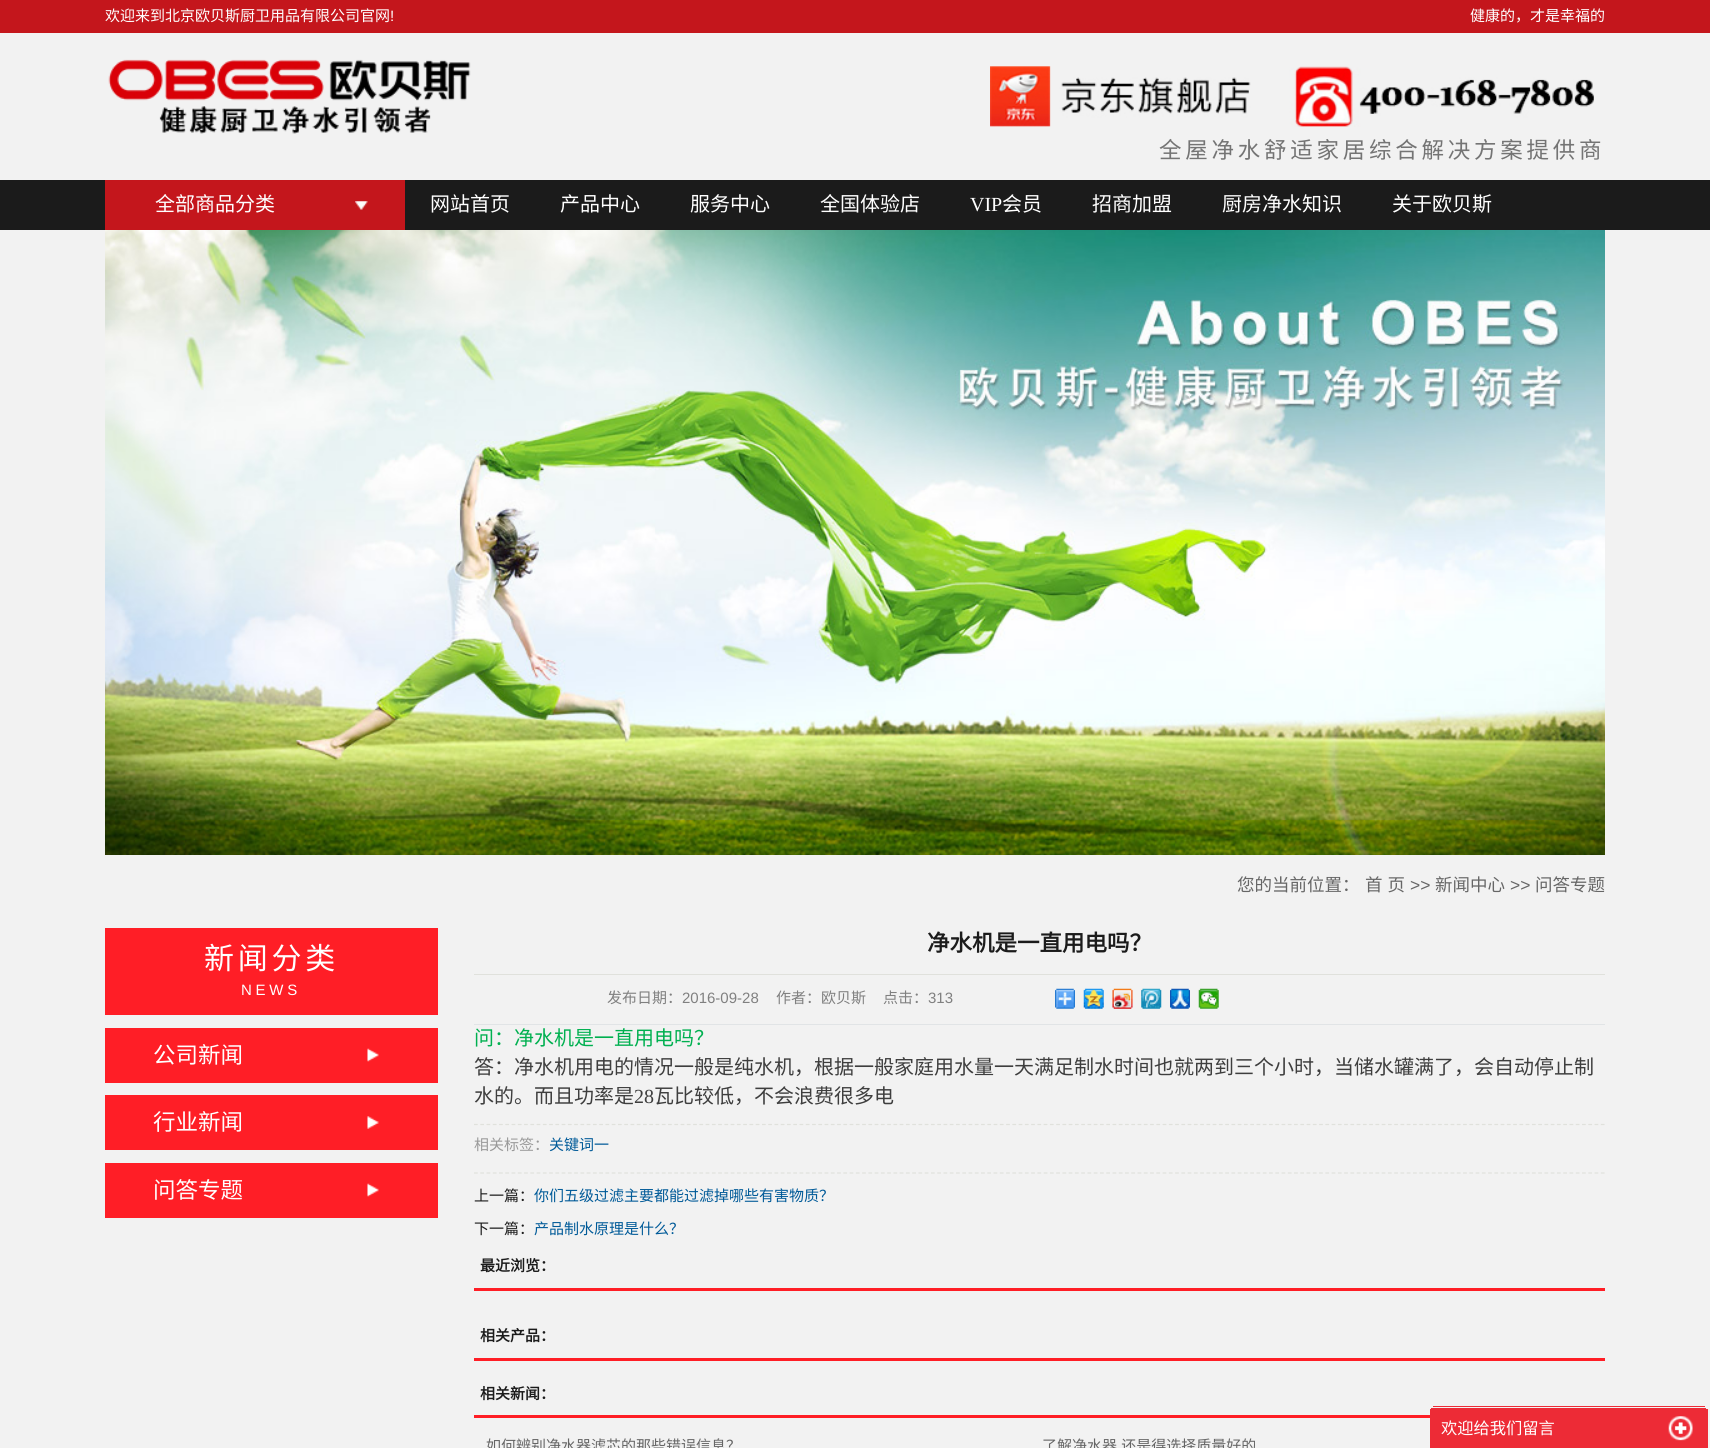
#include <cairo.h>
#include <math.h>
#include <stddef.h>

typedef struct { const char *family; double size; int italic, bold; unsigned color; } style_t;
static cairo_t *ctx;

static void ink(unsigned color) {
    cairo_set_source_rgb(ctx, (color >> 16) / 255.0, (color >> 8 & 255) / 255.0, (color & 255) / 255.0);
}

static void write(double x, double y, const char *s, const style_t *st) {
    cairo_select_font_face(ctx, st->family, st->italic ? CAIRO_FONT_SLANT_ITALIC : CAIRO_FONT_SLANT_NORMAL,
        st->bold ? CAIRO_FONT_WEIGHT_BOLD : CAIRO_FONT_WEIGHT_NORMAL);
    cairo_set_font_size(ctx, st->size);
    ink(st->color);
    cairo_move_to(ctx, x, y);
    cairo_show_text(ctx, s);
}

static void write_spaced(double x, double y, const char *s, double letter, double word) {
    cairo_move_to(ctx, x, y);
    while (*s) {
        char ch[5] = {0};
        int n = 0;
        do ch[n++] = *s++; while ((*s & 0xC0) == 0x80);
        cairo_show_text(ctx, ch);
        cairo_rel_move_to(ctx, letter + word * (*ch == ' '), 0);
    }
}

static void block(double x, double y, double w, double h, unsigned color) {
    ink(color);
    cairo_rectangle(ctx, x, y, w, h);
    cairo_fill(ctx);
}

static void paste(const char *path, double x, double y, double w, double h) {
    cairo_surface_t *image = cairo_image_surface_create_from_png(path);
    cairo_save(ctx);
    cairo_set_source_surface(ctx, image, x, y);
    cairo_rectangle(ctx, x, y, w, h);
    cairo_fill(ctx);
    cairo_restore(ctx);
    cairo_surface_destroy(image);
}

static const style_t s1 = {"Noto Sans CJK SC", 15, 0, 0, 0xffffff};
static const style_t s2 = {"Liberation Sans", 15, 0, 0, 0xffffff};
static const style_t s3 = {"Noto Sans CJK SC", 20, 0, 0, 0xffffff};
static const style_t s4 = {"Liberation Serif", 20, 0, 0, 0xffffff};
static const style_t s5 = {"Noto Sans CJK SC", 17.5, 0, 0, 0x666666};
static const style_t s6 = {"Liberation Sans", 17.5, 0, 0, 0x666666};
static const style_t s7 = {"Noto Sans CJK SC", 22.5, 0, 0, 0xffffff};
static const style_t s8 = {"Noto Sans CJK SC", 22.5, 0, 1, 0x1b1b1b};
static const style_t s9 = {"Noto Sans CJK SC", 15, 0, 0, 0x808080};
static const style_t s10 = {"Liberation Sans", 15, 0, 0, 0x808080};
static const style_t s11 = {"Noto Sans CJK SC", 20, 0, 0, 0x00b050};
static const style_t s12 = {"Noto Sans CJK SC", 20, 0, 0, 0x3e3e3e};
static const style_t s13 = {"Liberation Serif", 20, 0, 0, 0x3e3e3e};
static const style_t s14 = {"Noto Sans CJK SC", 15, 0, 0, 0x999999};
static const style_t s15 = {"Noto Sans CJK SC", 15, 0, 0, 0x005a98};
static const style_t s16 = {"Noto Sans CJK SC", 15, 0, 0, 0x1b1b1b};
static const style_t s17 = {"Noto Sans CJK SC", 15, 0, 1, 0x1b1b1b};
static const style_t s18 = {"Noto Sans CJK SC", 15, 0, 0, 0x666666};
static const style_t s19 = {"Noto Sans CJK SC", 16.25, 0, 0, 0xffffff};

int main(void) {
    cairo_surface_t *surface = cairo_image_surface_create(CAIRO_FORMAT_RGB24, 1710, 1448);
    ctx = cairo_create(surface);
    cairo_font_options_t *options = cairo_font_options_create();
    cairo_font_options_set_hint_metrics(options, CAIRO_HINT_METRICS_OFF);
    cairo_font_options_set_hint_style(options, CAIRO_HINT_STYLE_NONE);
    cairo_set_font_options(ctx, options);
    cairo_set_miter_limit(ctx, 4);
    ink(0xf2f2f2);
    cairo_paint(ctx);
    block(0, 0, 1710, 33, 0xc4161c);
    write(105, 21, "欢迎来到北京欧贝斯厨卫用品有限公司官网", &s1);
    write(390, 21, "!", &s2);
    write(1470, 21, "健康的，才是幸福的", &s1);
    paste("pic1.png", 108, 59, 363, 75);
    paste("pic2.png", 990, 66, 604, 61);
    cairo_set_font_size(ctx, 22.5);
    ink(0x747474);
    write_spaced(1159, 158, "全屋净水舒适家居综合解决方案提供商", 3.75, 0);
    block(0, 180, 1710, 50, 0x1b1b1b);
    block(105, 180, 300, 50, 0xc4161c);
    paste("pic3.png", 355, 201, 13, 9);
    write(155, 211, "全部商品分类", &s3);
    write(430, 211, "网站首页", &s3);
    write(560, 211, "产品中心", &s3);
    write(690, 211, "服务中心", &s3);
    write(820, 211, "全国体验店", &s3);
    write(970, 211, "VIP", &s4);
    write(1002, 211, "会员", &s3);
    write(1092, 211, "招商加盟", &s3);
    write(1222, 211, "厨房净水知识", &s3);
    write(1392, 211, "关于欧贝斯", &s3);
    paste("pic4.png", 105, 230, 1500, 625);
    write(1237, 891, "您的当前位置：", &s5);
    write_spaced(1365, 891, "首 页", 0, 1);
    write(1410, 891, ">>", &s6);
    write(1435, 891, "新闻中心", &s5);
    write(1510, 891, ">>", &s6);
    write(1535, 891, "问答专题", &s5);
    block(105, 928, 333, 87, 0xff1e26);
    cairo_set_font_size(ctx, 30);
    ink(0xffffff);
    write_spaced(204, 969, "新闻分类", 3.75, 0);
    cairo_select_font_face(ctx, "Liberation Sans", CAIRO_FONT_SLANT_NORMAL, CAIRO_FONT_WEIGHT_NORMAL);
    cairo_set_font_size(ctx, 15);
    write_spaced(241, 995, "NEWS", 3.75, 0);
    block(105, 1028, 333, 55, 0xff1e26);
    paste("pic5.png", 367, 1048, 12, 14);
    write(153, 1063, "公司新闻", &s7);
    block(105, 1095, 333, 55, 0xff1e26);
    paste("pic6.png", 367, 1116, 12, 13);
    write(153, 1130, "行业新闻", &s7);
    block(105, 1163, 333, 55, 0xff1e26);
    paste("pic5.png", 367, 1183, 12, 14);
    write(153, 1198, "问答专题", &s7);
    block(474, 974, 1131, 1, 0xe0e1dc);
    write(927, 951, "净水机是一直用电吗？", &s8);
    block(474, 1024, 1131, 1, 0xe1e4e6);
    write(607, 1003, "发布日期：", &s9);
    write(682, 1003, "2016-09-28", &s10);
    write(776, 1003, "作者：欧贝斯", &s9);
    write(883, 1003, "点击：", &s9);
    write(928, 1003, "313", &s10);
    paste("pic7.png", 1055, 988, 20, 21);
    paste("pic8.png", 1083, 988, 21, 21);
    paste("pic9.png", 1112, 988, 21, 21);
    paste("pic10.png", 1141, 988, 21, 21);
    paste("pic11.png", 1170, 988, 20, 21);
    paste("pic12.png", 1198, 988, 21, 21);
    write(474, 1045, "问：净水机是一直用电吗？", &s11);
    write(474, 1074, "答：净水机用电的情况一般是纯水机，根据一般家庭用水量一天满足制水时间也就两到三个小时，当储水罐满了，会自动停止制", &s12);
    write(474, 1103, "水的。而且功率是", &s12);
    write(634, 1103, "28", &s13);
    write(654, 1103, "瓦比较低，不会浪费很多电", &s12);
    cairo_new_path(ctx);
    cairo_move_to(ctx, 474, 1124.5);
    cairo_line_to(ctx, 1605, 1124.5);
    ink(0xe0e1dc);
    cairo_set_line_width(ctx, 1.2);
    cairo_set_dash(ctx, (double[]){3.75, 2.51}, 2, 0);
    cairo_stroke(ctx);
    write(474, 1150, "相关标签：", &s14);
    write(549, 1150, "关键词一", &s15);
    cairo_new_path(ctx);
    cairo_move_to(ctx, 474, 1173);
    cairo_line_to(ctx, 1605, 1173);
    ink(0xe0e1dc);
    cairo_stroke(ctx);
    write(474, 1201, "上一篇：", &s16);
    write(534, 1201, "你们五级过滤主要都能过滤掉哪些有害物质？", &s15);
    write(474, 1234, "下一篇：", &s16);
    write(534, 1234, "产品制水原理是什么？", &s15);
    block(474, 1288, 1131, 3, 0xff1e26);
    write(480, 1271, "最近浏览：", &s17);
    block(474, 1358, 1131, 3, 0xff1e26);
    write(480, 1341, "相关产品：", &s17);
    block(474, 1415, 956, 3, 0xff1e26);
    write(480, 1399, "相关新闻：", &s17);
    write(486, 1451, "如何辨别净水器滤芯的那些错误信息？", &s18);
    write_spaced(1042, 1451, "了解净水器 还是得选择质量好的", 0, 1);
    block(1433, 1406, 272, 1, 0xed2b36);
    block(1431, 1408, 275, 1, 0xed2b36);
    block(1430, 1409, 278, 39, 0xed2b36);
    write(1441, 1434, "欢迎给我们留言", &s19);
    paste("pic13.png", 1668, 1416, 25, 25);
    cairo_surface_write_to_png(surface, "screenshot.png");
    cairo_font_options_destroy(options);
    cairo_destroy(ctx);
    cairo_surface_destroy(surface);
    return 0;
}
